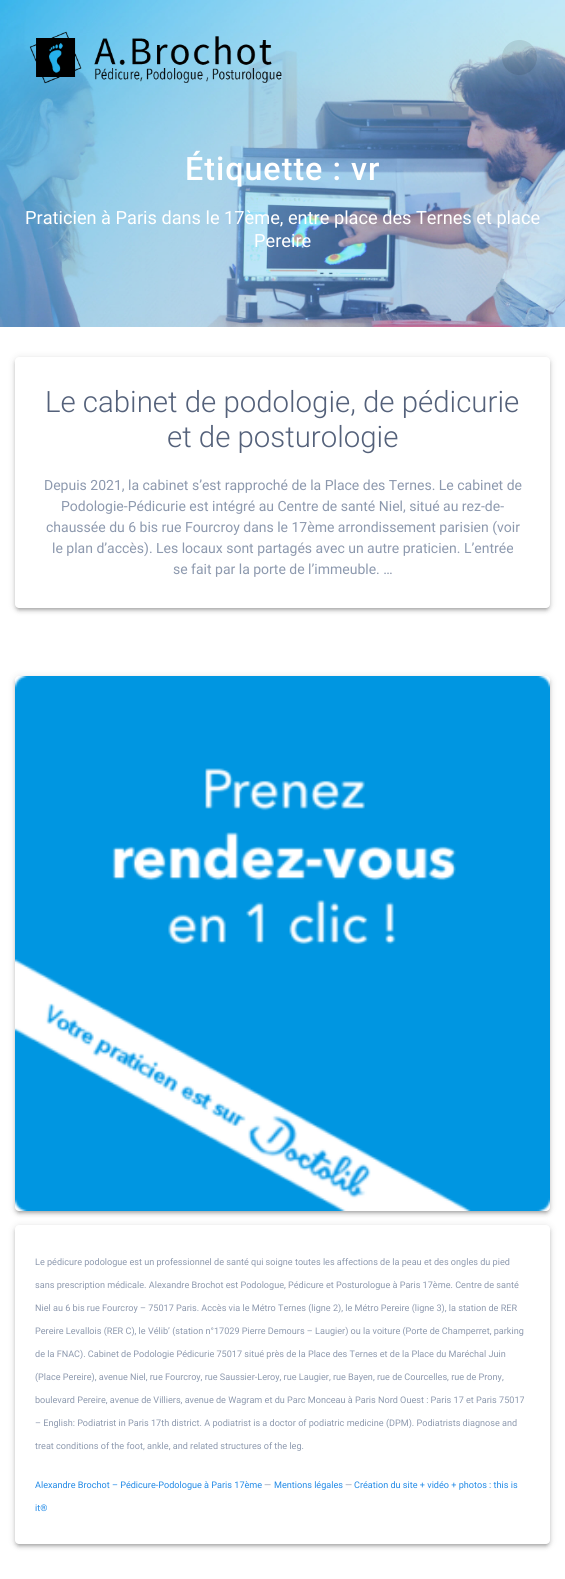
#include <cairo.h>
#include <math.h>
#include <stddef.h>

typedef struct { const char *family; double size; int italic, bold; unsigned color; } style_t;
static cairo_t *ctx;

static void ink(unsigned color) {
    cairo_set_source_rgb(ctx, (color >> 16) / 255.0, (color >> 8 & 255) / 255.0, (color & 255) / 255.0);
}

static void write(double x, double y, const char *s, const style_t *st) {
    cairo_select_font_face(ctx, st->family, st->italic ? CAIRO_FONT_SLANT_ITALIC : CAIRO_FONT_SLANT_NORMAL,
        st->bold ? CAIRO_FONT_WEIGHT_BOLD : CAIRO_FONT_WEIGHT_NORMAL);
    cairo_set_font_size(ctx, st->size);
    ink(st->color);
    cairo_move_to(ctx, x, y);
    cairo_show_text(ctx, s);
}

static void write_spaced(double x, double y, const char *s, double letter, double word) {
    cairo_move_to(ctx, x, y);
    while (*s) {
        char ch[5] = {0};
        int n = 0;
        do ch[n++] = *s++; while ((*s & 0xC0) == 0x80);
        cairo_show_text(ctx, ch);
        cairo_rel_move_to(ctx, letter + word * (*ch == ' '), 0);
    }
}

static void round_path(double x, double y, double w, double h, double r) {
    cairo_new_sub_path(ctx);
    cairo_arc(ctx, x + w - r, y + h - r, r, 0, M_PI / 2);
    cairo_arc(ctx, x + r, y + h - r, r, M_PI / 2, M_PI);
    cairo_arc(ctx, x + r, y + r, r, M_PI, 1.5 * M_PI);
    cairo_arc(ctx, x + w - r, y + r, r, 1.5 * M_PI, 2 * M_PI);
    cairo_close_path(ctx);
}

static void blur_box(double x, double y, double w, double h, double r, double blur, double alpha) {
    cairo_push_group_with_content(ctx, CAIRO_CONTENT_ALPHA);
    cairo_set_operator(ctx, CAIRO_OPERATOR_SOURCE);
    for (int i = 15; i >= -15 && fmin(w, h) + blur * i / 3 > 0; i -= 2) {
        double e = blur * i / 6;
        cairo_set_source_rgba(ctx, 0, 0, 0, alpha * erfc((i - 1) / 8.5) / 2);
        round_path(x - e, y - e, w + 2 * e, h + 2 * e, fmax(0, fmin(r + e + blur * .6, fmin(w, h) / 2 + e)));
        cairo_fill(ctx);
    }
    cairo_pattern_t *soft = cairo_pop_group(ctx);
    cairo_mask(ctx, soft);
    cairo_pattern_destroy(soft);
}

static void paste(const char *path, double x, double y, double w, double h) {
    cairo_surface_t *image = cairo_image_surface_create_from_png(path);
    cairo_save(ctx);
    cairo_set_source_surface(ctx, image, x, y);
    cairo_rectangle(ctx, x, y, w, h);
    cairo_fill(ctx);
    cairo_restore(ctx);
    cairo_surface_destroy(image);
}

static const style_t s1 = {"Roboto", 18.2, 0, 0, 0xffffff};
static const style_t s2 = {"Roboto Light", 29.4, 0, 0, 0x54617a};
static const style_t s3 = {"Roboto", 14, 0, 0, 0x8d99ae};
static const style_t s4 = {"Roboto", 9.1, 0, 0, 0x8d99ae};
static const style_t s5 = {"Roboto", 9.1, 0, 0, 0x228ae6};

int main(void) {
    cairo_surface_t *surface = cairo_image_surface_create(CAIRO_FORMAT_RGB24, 565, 1579);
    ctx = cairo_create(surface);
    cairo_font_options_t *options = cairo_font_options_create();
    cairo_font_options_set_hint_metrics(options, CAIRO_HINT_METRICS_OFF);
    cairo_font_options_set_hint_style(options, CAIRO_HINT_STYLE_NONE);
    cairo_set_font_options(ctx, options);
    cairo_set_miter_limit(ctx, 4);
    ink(0xffffff);
    cairo_paint(ctx);
    paste("pic2.png", 0, 0, 565, 327);
    paste("pic1.png", 29, 31, 253, 53);
    cairo_set_source_rgba(ctx, 0, 0, 0, 0.1);
    cairo_arc(ctx, 519.5, 57.5, 17.5, 0, 2 * M_PI);
    cairo_fill(ctx);
    cairo_select_font_face(ctx, "Roboto Medium", CAIRO_FONT_SLANT_NORMAL, CAIRO_FONT_WEIGHT_NORMAL);
    cairo_set_font_size(ctx, 32.25);
    ink(0xffffff);
    write_spaced(185, 180, "Étiquette : vr", 1, 0);
    write(25, 224, "Praticien à Paris dans le 17ème, entre place des Ternes et place", &s1);
    write(254, 247, "Pereire", &s1);
    ink(0x000000);
    blur_box(15, 358, 535, 251, 4, 4, 0.12);
    blur_box(15, 360, 535, 251, 4, 2, 0.14);
    blur_box(17, 362, 531, 247, 2, 1.5, 0.2);
    ink(0xffffff);
    round_path(15, 357, 535, 251, 4);
    cairo_fill(ctx);
    write(45, 412, "Le cabinet de podologie, de pédicurie", &s2);
    write(167, 447, "et de posturologie", &s2);
    write(44, 490, "Depuis 2021, la cabinet s’est rapproché de la Place des Ternes. Le cabinet de", &s3);
    write(61, 511, "Podologie-Pédicurie est intégré au Centre de santé Niel, situé au rez-de-", &s3);
    write(46, 532, "chaussée du 6 bis rue Fourcroy dans le 17ème arrondissement parisien (voir", &s3);
    write(52, 553, "le plan d’accès). Les locaux sont partagés avec un autre praticien. L’entrée", &s3);
    write(173, 574, "se fait par la porte de l’immeuble. …", &s3);
    ink(0x000000);
    blur_box(15, 677, 535, 535, 4, 4, 0.12);
    blur_box(15, 679, 535, 535, 4, 2, 0.14);
    blur_box(17, 681, 531, 531, 2, 1.5, 0.2);
    ink(0xffffff);
    round_path(15, 676, 535, 535, 4);
    cairo_fill(ctx);
    paste("pic3.png", 15, 676, 535, 535);
    ink(0x000000);
    blur_box(15, 1226, 535, 319, 4, 4, 0.12);
    blur_box(15, 1228, 535, 319, 4, 2, 0.14);
    blur_box(17, 1230, 531, 315, 2, 1.5, 0.2);
    ink(0xffffff);
    round_path(15, 1225, 535, 319, 4);
    cairo_fill(ctx);
    write(35, 1265, "Le pédicure podologue est un professionnel de santé qui soigne toutes les affections de la peau et des ongles du pied", &s4);
    write(35, 1288, "sans prescription médicale. Alexandre Brochot est Podologue, Pédicure et Posturologue à Paris 17ème. Centre de santé", &s4);
    write(35, 1311, "Niel au 6 bis rue Fourcroy – 75017 Paris. Accès via le Métro Ternes (ligne 2), le Métro Pereire (ligne 3), la station de RER", &s4);
    write(35, 1334, "Pereire Levallois (RER C), le Vélib’ (station n°17029 Pierre Demours – Laugier) ou la voiture (Porte de Champerret, parking", &s4);
    write(35, 1357, "de la FNAC). Cabinet de Podologie Pédicurie 75017 situé près de la Place des Ternes et de la Place du Maréchal Juin", &s4);
    write(35, 1380, "(Place Pereire), avenue Niel, rue Fourcroy, rue Saussier-Leroy, rue Laugier, rue Bayen, rue de Courcelles, rue de Prony,", &s4);
    write(35, 1403, "boulevard Pereire, avenue de Villiers, avenue de Wagram et du Parc Monceau à Paris Nord Ouest : Paris 17 et Paris 75017", &s4);
    write(35, 1426, "– English: Podiatrist in Paris 17th district. A podiatrist is a doctor of podiatric medicine (DPM). Podiatrists diagnose and", &s4);
    write(35, 1449, "treat conditions of the foot, ankle, and related structures of the leg.", &s4);
    write(35, 1488, "Alexandre Brochot – Pédicure-Podologue à Paris 17ème", &s5);
    write(264, 1488, "—", &s4);
    write(274, 1488, "Mentions légales", &s5);
    write(345, 1488, "—", &s4);
    write(354, 1488, "Création du site + vidéo + photos : this is", &s5);
    write(35, 1511, "it®", &s5);
    cairo_surface_write_to_png(surface, "screenshot.png");
    cairo_font_options_destroy(options);
    cairo_destroy(ctx);
    cairo_surface_destroy(surface);
    return 0;
}
